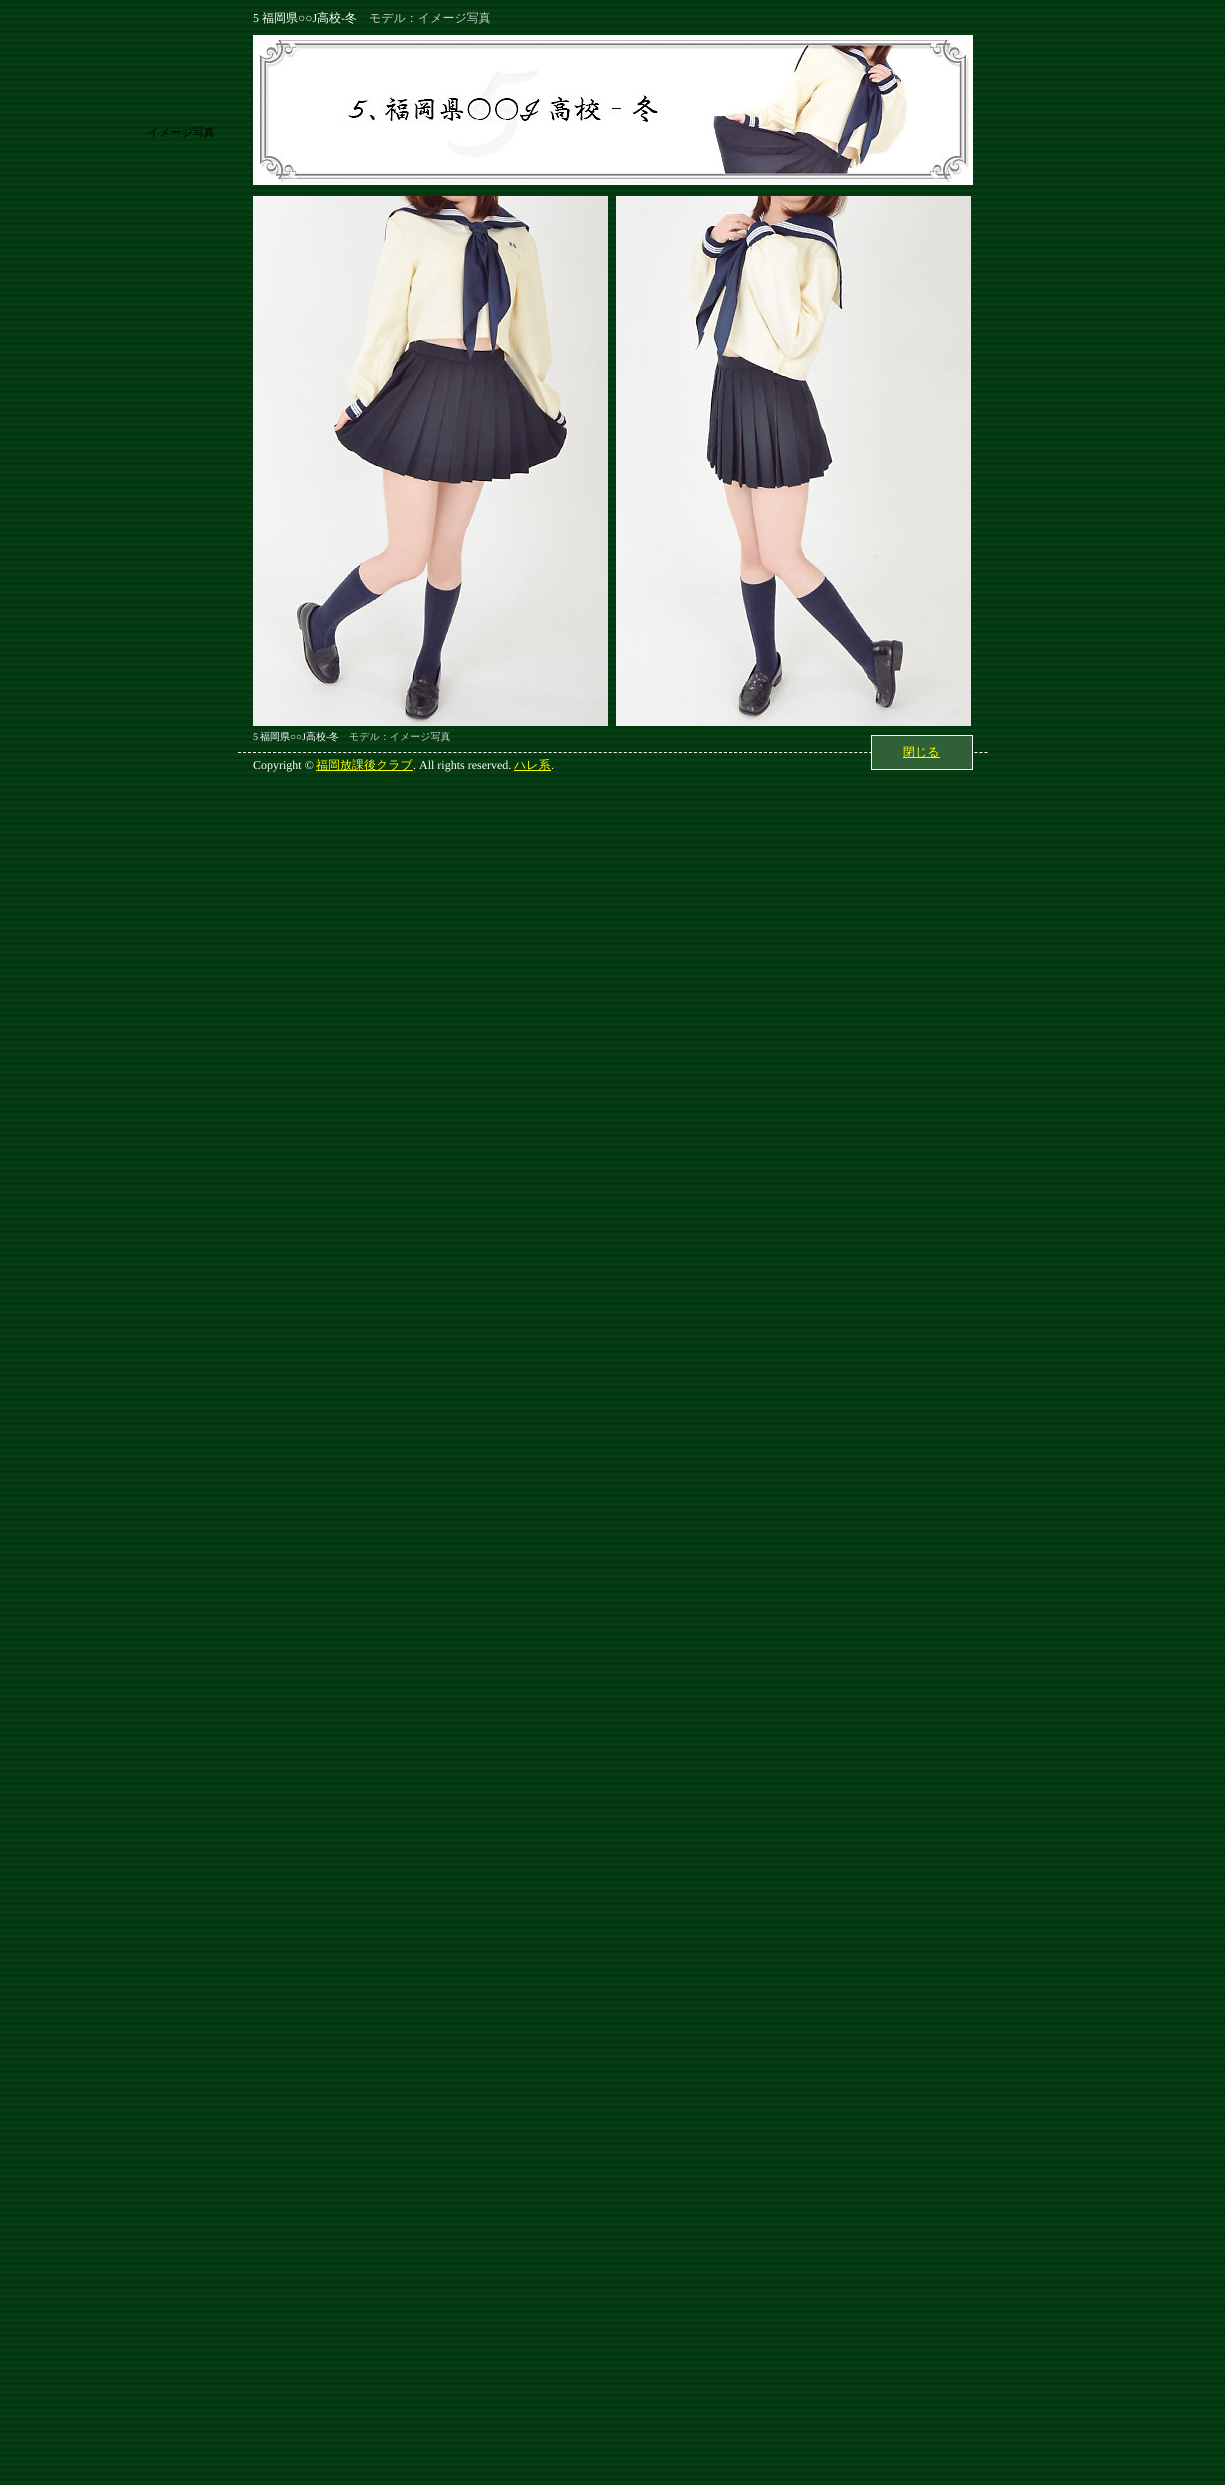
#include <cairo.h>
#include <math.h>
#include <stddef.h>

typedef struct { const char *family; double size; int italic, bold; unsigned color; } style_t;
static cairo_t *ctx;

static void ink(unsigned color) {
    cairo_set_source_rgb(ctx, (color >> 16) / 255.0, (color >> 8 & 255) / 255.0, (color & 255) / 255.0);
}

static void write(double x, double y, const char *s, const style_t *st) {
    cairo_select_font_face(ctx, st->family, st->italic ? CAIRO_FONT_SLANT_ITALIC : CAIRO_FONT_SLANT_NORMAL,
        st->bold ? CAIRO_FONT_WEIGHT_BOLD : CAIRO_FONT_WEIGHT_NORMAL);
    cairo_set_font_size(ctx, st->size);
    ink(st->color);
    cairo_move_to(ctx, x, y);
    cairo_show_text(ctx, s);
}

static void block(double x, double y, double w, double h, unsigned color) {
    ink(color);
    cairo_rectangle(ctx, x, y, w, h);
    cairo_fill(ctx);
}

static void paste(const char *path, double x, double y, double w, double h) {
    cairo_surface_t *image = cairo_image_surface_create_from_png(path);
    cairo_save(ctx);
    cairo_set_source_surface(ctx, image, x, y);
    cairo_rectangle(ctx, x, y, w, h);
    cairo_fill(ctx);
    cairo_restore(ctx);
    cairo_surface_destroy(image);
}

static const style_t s1 = {"Liberation Serif", 12, 0, 0, 0xffffff};
static const style_t s2 = {"WenQuanYi Zen Hei Medium", 12, 0, 0, 0xffffff};
static const style_t s3 = {"WenQuanYi Zen Hei Medium", 12, 0, 0, 0xcccccc};
static const style_t s4 = {"WenQuanYi Zen Hei Medium", 11, 0, 0, 0x000000};
static const style_t s5 = {"Liberation Serif", 10, 0, 0, 0xffffff};
static const style_t s6 = {"WenQuanYi Zen Hei Medium", 10, 0, 0, 0xffffff};
static const style_t s7 = {"WenQuanYi Zen Hei Medium", 10, 0, 0, 0xcccccc};
static const style_t s8 = {"WenQuanYi Zen Hei Medium", 12, 0, 0, 0xffff00};

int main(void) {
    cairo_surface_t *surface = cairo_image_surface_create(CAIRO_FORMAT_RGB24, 1225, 2485);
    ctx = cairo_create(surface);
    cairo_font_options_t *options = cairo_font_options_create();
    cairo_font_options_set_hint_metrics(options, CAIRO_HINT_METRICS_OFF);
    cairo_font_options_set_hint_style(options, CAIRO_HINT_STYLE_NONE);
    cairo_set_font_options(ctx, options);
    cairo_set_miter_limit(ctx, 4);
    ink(0xffffff);
    cairo_paint(ctx);
    paste("pic1.png", 0, 0, 1225, 2485);
    paste("pic2.png", 238, 0, 750, 783);
    write(253, 22, "5", &s1);
    write(262, 22, "福岡県", &s2);
    write(298, 22, "○○J", &s1);
    write(317, 22, "高校", &s2);
    write(341, 22, "-", &s1);
    write(345, 22, "冬", &s2);
    write(369, 22, "モデル：イメージ写真", &s3);
    write(148, 136, "イメージ写真", &s4);
    paste("pic3.png", 253, 35, 720, 150);
    paste("pic4.png", 253, 196, 355, 530);
    paste("pic5.png", 616, 196, 355, 530);
    write(253, 740, "5", &s5);
    write(260, 740, "福岡県", &s6);
    write(290, 740, "○○J", &s5);
    write(306, 740, "高校", &s6);
    write(326, 740, "-", &s5);
    write(329, 740, "冬", &s6);
    write(349, 740, "モデル：イメージ写真", &s7);
    cairo_new_path(ctx);
    cairo_move_to(ctx, 238, 752.5);
    cairo_line_to(ctx, 988, 752.5);
    ink(0xffffff);
    cairo_set_line_width(ctx, 1);
    cairo_set_dash(ctx, (double[]){3, 2.01}, 2, 0);
    cairo_stroke(ctx);
    ink(0x306136);
    cairo_rectangle(ctx, 871.5, 735.5, 101, 34);
    cairo_fill_preserve(ctx);
    ink(0xffffff);
    cairo_set_dash(ctx, NULL, 0, 0);
    cairo_stroke(ctx);
    block(903, 757, 37, 1, 0xfafb00);
    write(903, 756, "閉じる", &s8);
    write(253, 769, "Copyright ©", &s1);
    block(316, 770, 97, 1, 0xffff00);
    write(316, 769, "福岡放課後クラブ", &s8);
    write(413, 769, ". All rights reserved.", &s1);
    block(514, 770, 37, 1, 0xffff00);
    write(514, 769, "ハレ系", &s8);
    write(551, 769, ".", &s1);
    cairo_surface_write_to_png(surface, "screenshot.png");
    cairo_font_options_destroy(options);
    cairo_destroy(ctx);
    cairo_surface_destroy(surface);
    return 0;
}
